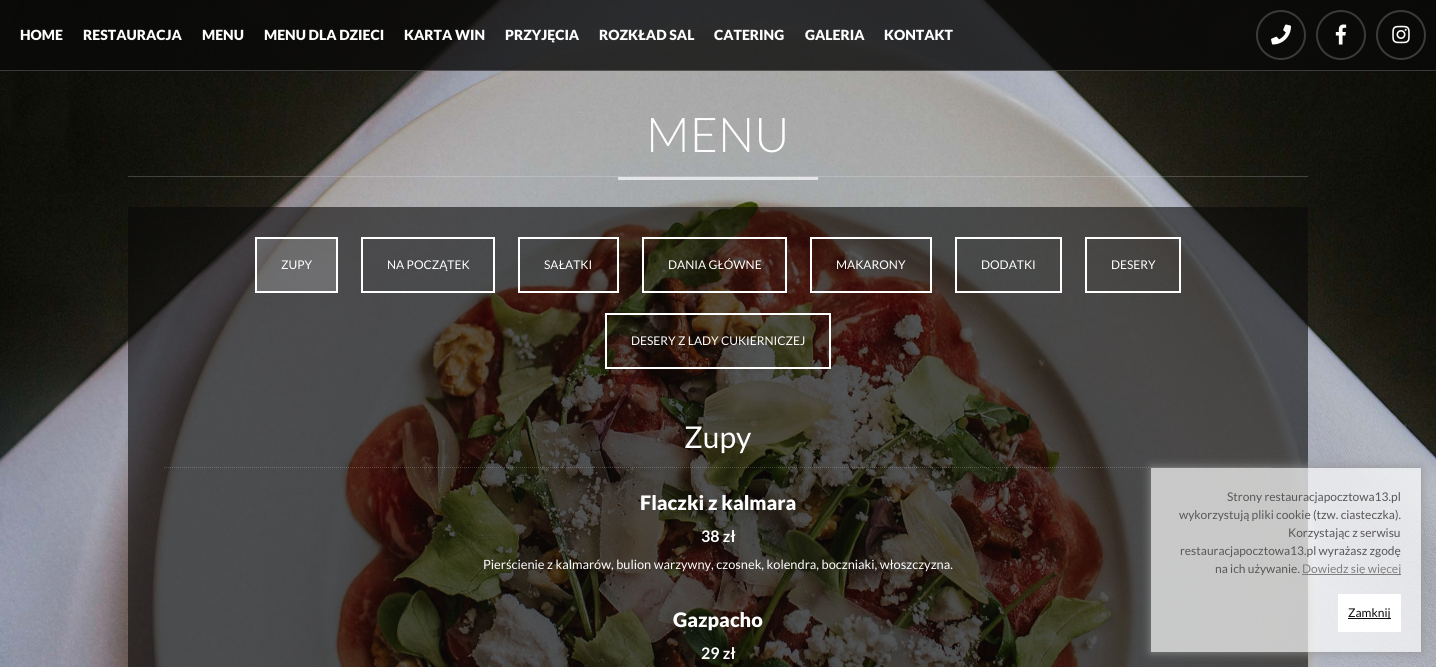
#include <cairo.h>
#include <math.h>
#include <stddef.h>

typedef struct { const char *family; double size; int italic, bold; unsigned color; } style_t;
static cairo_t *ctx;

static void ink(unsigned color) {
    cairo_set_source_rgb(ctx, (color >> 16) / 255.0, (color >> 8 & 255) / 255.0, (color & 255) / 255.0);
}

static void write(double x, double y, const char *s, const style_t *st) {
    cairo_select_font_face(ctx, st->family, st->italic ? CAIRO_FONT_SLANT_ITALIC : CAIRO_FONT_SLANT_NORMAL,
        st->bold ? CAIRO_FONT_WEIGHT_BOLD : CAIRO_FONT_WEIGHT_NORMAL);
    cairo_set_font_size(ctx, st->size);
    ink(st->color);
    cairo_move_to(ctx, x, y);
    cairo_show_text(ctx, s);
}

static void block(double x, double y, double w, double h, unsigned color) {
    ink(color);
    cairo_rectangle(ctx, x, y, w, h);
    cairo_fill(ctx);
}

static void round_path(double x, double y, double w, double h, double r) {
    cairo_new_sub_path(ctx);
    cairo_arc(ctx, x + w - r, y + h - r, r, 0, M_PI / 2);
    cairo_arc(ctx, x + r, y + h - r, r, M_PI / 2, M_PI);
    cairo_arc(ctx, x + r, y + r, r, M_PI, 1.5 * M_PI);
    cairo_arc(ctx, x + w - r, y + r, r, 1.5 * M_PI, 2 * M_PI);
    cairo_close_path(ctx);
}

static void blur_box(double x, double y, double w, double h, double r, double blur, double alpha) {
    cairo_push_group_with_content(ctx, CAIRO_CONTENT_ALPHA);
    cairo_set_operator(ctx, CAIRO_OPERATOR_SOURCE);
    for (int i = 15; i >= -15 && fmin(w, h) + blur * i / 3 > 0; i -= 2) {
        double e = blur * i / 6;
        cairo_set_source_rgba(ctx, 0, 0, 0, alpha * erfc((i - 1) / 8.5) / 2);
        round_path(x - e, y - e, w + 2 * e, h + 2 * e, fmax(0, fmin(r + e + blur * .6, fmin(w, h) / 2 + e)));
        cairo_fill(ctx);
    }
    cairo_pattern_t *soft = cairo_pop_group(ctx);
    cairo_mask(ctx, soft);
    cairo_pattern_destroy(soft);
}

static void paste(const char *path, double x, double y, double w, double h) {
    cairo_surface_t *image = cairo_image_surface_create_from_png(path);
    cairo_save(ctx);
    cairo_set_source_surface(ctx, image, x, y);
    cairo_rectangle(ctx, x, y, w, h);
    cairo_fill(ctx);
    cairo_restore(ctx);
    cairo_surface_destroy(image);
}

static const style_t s1 = {"Lato Black", 14, 0, 0, 0xfefefe};
static const style_t s2 = {"Lato Light", 48, 0, 0, 0xfefefe};
static const style_t s3 = {"Lato", 12, 0, 0, 0xfefefe};
static const style_t s4 = {"Lato", 30, 0, 0, 0xfefefe};
static const style_t s5 = {"Lato Black", 20, 0, 0, 0xfefefe};
static const style_t s6 = {"Lato", 16, 0, 1, 0xfefefe};
static const style_t s7 = {"Lato", 12.8, 0, 0, 0xfefefe};
static const style_t s8 = {"Lato", 12, 0, 0, 0x575757};
static const style_t s9 = {"Lato", 12, 0, 0, 0x7f7f7f};
static const style_t s10 = {"Lato", 12, 0, 0, 0x0a0a0a};

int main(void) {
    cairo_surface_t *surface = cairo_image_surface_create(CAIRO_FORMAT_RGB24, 1436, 667);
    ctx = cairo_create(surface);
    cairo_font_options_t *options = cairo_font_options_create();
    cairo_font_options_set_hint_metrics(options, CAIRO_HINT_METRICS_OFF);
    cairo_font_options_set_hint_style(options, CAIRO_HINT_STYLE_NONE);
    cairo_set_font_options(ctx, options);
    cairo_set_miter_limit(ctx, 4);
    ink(0xffffff);
    cairo_paint(ctx);
    paste("pic1.png", 0, 0, 1436, 667);
    cairo_set_source_rgba(ctx, 0.039, 0.039, 0.039, 0.8);
    cairo_rectangle(ctx, 0, 0, 1436, 71);
    cairo_fill(ctx);
    cairo_set_source_rgba(ctx, 0.996, 0.996, 0.996, 0.2);
    cairo_rectangle(ctx, 0, 70, 1436, 1);
    cairo_fill(ctx);
    write(20, 40, "HOME", &s1);
    write(83, 40, "RESTAURACJA", &s1);
    write(202, 40, "MENU", &s1);
    write(264, 40, "MENU DLA DZIECI", &s1);
    write(404, 40, "KARTA WIN", &s1);
    write(505, 40, "PRZYJĘCIA", &s1);
    write(599, 40, "ROZKŁAD SAL", &s1);
    write(714, 40, "CATERING", &s1);
    write(805, 40, "GALERIA", &s1);
    write(884, 40, "KONTAKT", &s1);
    cairo_new_path(ctx);
    cairo_arc(ctx, 1281, 35, 24, 0, 2 * M_PI);
    cairo_set_source_rgba(ctx, 0.996, 0.996, 0.996, 0.2);
    cairo_stroke(ctx);
    paste("pic2.png", 1271, 24, 20, 21);
    cairo_arc(ctx, 1341, 35, 24, 0, 2 * M_PI);
    cairo_stroke(ctx);
    paste("pic3.png", 1335, 24, 12, 21);
    cairo_arc(ctx, 1401, 35, 24, 0, 2 * M_PI);
    ink(0x3b3b3b);
    cairo_stroke(ctx);
    paste("pic4.png", 1392, 25, 18, 19);
    write(646, 152, "MENU", &s2);
    cairo_set_source_rgba(ctx, 0.996, 0.996, 0.996, 0.2);
    cairo_rectangle(ctx, 128, 176, 1180, 1);
    cairo_fill(ctx);
    cairo_set_source_rgba(ctx, 0.996, 0.996, 0.996, 0.7);
    cairo_rectangle(ctx, 618, 177, 200, 3);
    cairo_fill(ctx);
    cairo_set_source_rgba(ctx, 0.039, 0.039, 0.039, 0.6);
    cairo_rectangle(ctx, 128, 207, 1180, 460);
    cairo_fill(ctx);
    cairo_set_source_rgba(ctx, 0.996, 0.996, 0.996, 0.2);
    cairo_rectangle(ctx, 256, 238, 81, 54);
    cairo_fill_preserve(ctx);
    ink(0xfefefe);
    cairo_stroke(ctx);
    write(281, 269, "ZUPY", &s3);
    cairo_rectangle(ctx, 362, 238, 132, 54);
    cairo_stroke(ctx);
    write(387, 269, "NA POCZĄTEK", &s3);
    cairo_rectangle(ctx, 519, 238, 99, 54);
    cairo_stroke(ctx);
    write(544, 269, "SAŁATKI", &s3);
    cairo_rectangle(ctx, 643, 238, 143, 54);
    cairo_stroke(ctx);
    write(668, 269, "DANIA GŁÓWNE", &s3);
    cairo_rectangle(ctx, 811, 238, 120, 54);
    cairo_stroke(ctx);
    write(836, 269, "MAKARONY", &s3);
    cairo_rectangle(ctx, 956, 238, 105, 54);
    cairo_stroke(ctx);
    write(981, 269, "DODATKI", &s3);
    cairo_rectangle(ctx, 1086, 238, 94, 54);
    cairo_stroke(ctx);
    write(1111, 269, "DESERY", &s3);
    cairo_rectangle(ctx, 606, 314, 224, 54);
    cairo_stroke(ctx);
    write(631, 345, "DESERY Z LADY CUKIERNICZEJ", &s3);
    cairo_new_path(ctx);
    cairo_move_to(ctx, 164, 467.5);
    cairo_line_to(ctx, 1272, 467.5);
    cairo_set_source_rgba(ctx, 0.996, 0.996, 0.996, 0.2);
    cairo_set_line_width(ctx, 1);
    cairo_set_dash(ctx, (double[]){1, 1}, 2, 0);
    cairo_stroke(ctx);
    write(684, 448, "Zupy", &s4);
    write(640, 510, "Flaczki z kalmara", &s5);
    write(701, 542, "38 zł", &s6);
    write(483, 569, "Pierścienie z kalmarów, bulion warzywny, czosnek, kolendra, boczniaki, włoszczyzna.", &s7);
    write(673, 627, "Gazpacho", &s5);
    write(701, 659, "29 zł", &s6);
    cairo_save(ctx);
    cairo_set_fill_rule(ctx, CAIRO_FILL_RULE_EVEN_ODD);
    cairo_new_path(ctx);
    cairo_move_to(ctx, 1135, 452);
    cairo_line_to(ctx, 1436, 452);
    cairo_line_to(ctx, 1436, 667);
    cairo_line_to(ctx, 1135, 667);
    cairo_close_path(ctx);
    cairo_move_to(ctx, 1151, 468);
    cairo_line_to(ctx, 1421, 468);
    cairo_line_to(ctx, 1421, 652);
    cairo_line_to(ctx, 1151, 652);
    cairo_close_path(ctx);
    cairo_clip(ctx);
    ink(0x939393);
    blur_box(1151, 468, 270, 184, 0, 5, 1);
    cairo_restore(ctx);
    cairo_set_source_rgba(ctx, 1, 1, 1, 0.7);
    cairo_rectangle(ctx, 1151, 468, 270, 184);
    cairo_fill(ctx);
    write(1227, 501, "Strony restauracjapocztowa13.pl", &s8);
    write(1179, 519, "wykorzystują pliki cookie (tzw. ciasteczka).", &s8);
    write(1288, 537, "Korzystając z serwisu", &s8);
    write(1180, 555, "restauracjapocztowa13.pl wyrażasz zgodę", &s8);
    write(1215, 573, "na ich używanie.", &s8);
    block(1302, 574, 99, 1, 0x7f7f7f);
    write(1302, 573, "Dowiedz się więcej", &s9);
    block(1338, 594, 63, 38, 0xffffff);
    block(1348, 618, 43, 1, 0x0a0a0a);
    write(1348, 617, "Zamknij", &s10);
    cairo_surface_write_to_png(surface, "screenshot.png");
    cairo_font_options_destroy(options);
    cairo_destroy(ctx);
    cairo_surface_destroy(surface);
    return 0;
}
